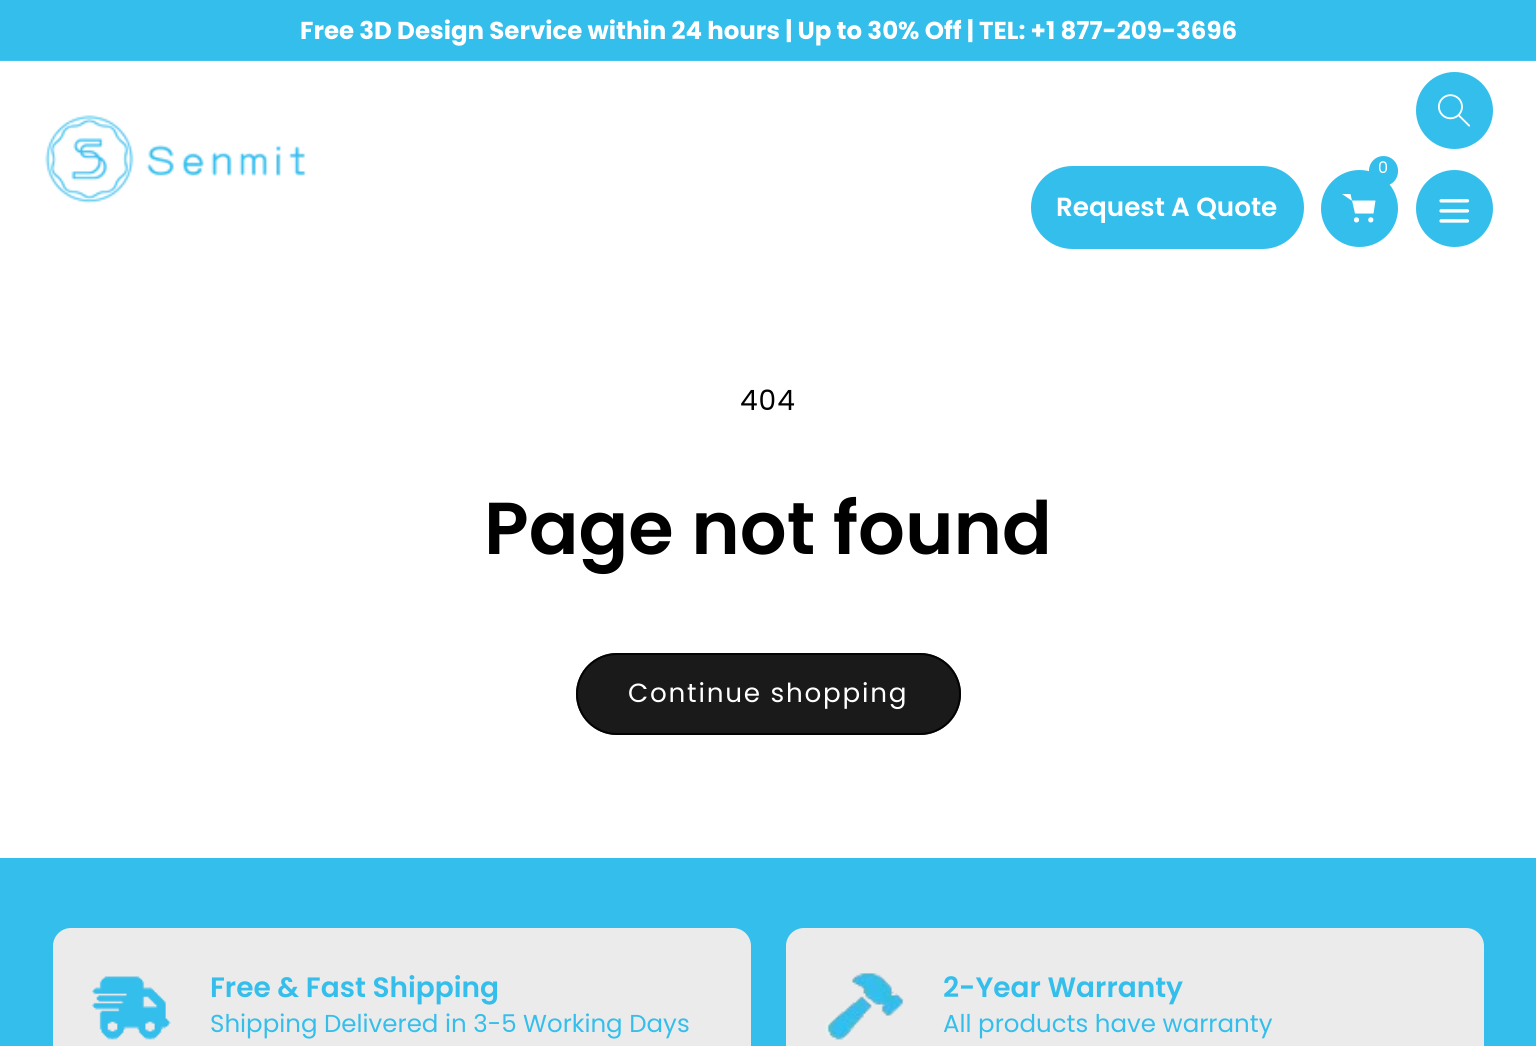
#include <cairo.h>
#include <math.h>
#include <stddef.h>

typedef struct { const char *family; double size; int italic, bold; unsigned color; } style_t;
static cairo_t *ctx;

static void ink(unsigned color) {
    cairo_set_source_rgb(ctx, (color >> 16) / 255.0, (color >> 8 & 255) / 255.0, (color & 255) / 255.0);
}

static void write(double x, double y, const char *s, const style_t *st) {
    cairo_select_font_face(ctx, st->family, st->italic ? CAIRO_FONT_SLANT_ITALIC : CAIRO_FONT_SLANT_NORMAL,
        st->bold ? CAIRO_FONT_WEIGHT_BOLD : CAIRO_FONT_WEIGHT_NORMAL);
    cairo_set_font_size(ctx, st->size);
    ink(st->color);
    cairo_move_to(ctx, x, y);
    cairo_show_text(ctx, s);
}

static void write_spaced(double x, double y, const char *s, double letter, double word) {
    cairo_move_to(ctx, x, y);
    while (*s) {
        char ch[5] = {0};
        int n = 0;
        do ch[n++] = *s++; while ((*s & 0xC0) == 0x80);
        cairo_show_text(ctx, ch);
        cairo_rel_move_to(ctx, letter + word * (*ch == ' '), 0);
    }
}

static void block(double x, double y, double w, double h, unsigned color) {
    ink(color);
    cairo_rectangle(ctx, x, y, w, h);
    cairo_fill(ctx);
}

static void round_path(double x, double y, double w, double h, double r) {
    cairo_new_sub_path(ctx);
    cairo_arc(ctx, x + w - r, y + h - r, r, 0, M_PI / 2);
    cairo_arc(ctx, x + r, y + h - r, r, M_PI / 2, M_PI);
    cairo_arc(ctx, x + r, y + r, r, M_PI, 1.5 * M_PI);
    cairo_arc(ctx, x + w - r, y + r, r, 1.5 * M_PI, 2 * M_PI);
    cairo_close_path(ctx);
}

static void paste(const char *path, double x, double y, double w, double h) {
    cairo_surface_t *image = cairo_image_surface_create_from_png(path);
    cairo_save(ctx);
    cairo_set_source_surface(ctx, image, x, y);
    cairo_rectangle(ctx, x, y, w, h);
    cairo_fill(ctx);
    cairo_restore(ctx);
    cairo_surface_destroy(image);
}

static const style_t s1 = {"Poppins", 24.5, 0, 1, 0xffffff};
static const style_t s2 = {"Poppins SemiBold", 26.25, 0, 0, 0xffffff};
static const style_t s3 = {"Poppins SemiBold", 73.5, 0, 0, 0x000000};
static const style_t s4 = {"Poppins SemiBold", 28, 0, 0, 0x34beec};
static const style_t s5 = {"Poppins", 24.5, 0, 0, 0x34beec};

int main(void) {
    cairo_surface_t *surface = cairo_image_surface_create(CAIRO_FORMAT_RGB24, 1536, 1046);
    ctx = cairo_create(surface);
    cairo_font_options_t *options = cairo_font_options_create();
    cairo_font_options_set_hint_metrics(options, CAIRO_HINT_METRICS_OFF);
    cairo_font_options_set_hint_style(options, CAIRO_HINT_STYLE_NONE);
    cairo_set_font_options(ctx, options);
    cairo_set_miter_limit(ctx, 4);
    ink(0xffffff);
    cairo_paint(ctx);
    block(0, 0, 1536, 60, 0x34beec);
    block(0, 60, 1536, 1, 0x44c3ee);
    write(300, 39, "Free 3D Design Service within 24 hours | Up to 30% Off | TEL: +1 877-209-3696", &s1);
    paste("pic1.png", 45, 115, 261, 89);
    ink(0x34beec);
    cairo_arc(ctx, 1454.5, 110.5, 38.5, 0, 2 * M_PI);
    cairo_fill(ctx);
    paste("pic2.png", 1438, 94, 32, 33);
    cairo_arc(ctx, 1359.5, 208.5, 38.5, 0, 2 * M_PI);
    cairo_fill(ctx);
    round_path(1369, 156, 29, 30, 14.5);
    cairo_fill(ctx);
    cairo_select_font_face(ctx, "Poppins", CAIRO_FONT_SLANT_NORMAL, CAIRO_FONT_WEIGHT_NORMAL);
    cairo_set_font_size(ctx, 16);
    ink(0xffffff);
    write_spaced(1378, 173, "0", 1, 0);
    cairo_new_path(ctx);
    cairo_arc(ctx, 1356.5, 219.9, 2.6, 0, 2 * M_PI);
    cairo_fill(ctx);
    cairo_arc(ctx, 1370.8, 219.9, 2.6, 0, 2 * M_PI);
    cairo_fill(ctx);
    cairo_set_fill_rule(ctx, CAIRO_FILL_RULE_EVEN_ODD);
    cairo_new_path(ctx);
    cairo_move_to(ctx, 1351.5, 200.5);
    cairo_line_to(ctx, 1375.5, 200.5);
    cairo_line_to(ctx, 1373.5, 213.5);
    cairo_line_to(ctx, 1355, 213.5);
    cairo_line_to(ctx, 1350.5, 194);
    cairo_line_to(ctx, 1342, 194);
    cairo_fill(ctx);
    ink(0x34beec);
    round_path(1031, 166, 273, 83, 41.5);
    cairo_fill(ctx);
    write(1056, 216, "Request A Quote", &s2);
    ink(0x34beec);
    cairo_new_path(ctx);
    cairo_arc(ctx, 1454.5, 208.5, 38.5, 0, 2 * M_PI);
    cairo_fill(ctx);
    paste("pic3.png", 1439, 199, 31, 24);
    cairo_select_font_face(ctx, "Poppins", CAIRO_FONT_SLANT_NORMAL, CAIRO_FONT_WEIGHT_NORMAL);
    cairo_set_font_size(ctx, 28);
    ink(0x000000);
    write_spaced(740, 410, "404", 1, 0);
    write(484, 554, "Page not found", &s3);
    ink(0x1a1a1a);
    round_path(576, 653, 385, 82, 41);
    cairo_fill(ctx);
    round_path(577, 654, 383, 80, 40);
    cairo_set_source_rgba(ctx, 0, 0, 0, 0.9);
    cairo_stroke(ctx);
    cairo_select_font_face(ctx, "Poppins", CAIRO_FONT_SLANT_NORMAL, CAIRO_FONT_WEIGHT_NORMAL);
    cairo_set_font_size(ctx, 26.25);
    ink(0xffffff);
    write_spaced(628, 702, "Continue shopping", 1.75, 0);
    block(0, 858, 1536, 188, 0x34beec);
    ink(0xebebeb);
    round_path(53, 928, 698, 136, 18);
    cairo_fill(ctx);
    paste("pic4.png", 92, 976, 79, 64);
    write(210, 997, "Free & Fast Shipping", &s4);
    write(210, 1032, "Shipping Delivered in 3-5 Working Days", &s5);
    ink(0xebebeb);
    round_path(786, 928, 698, 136, 18);
    cairo_fill(ctx);
    paste("pic5.png", 826, 973, 78, 67);
    write(943, 997, "2-Year Warranty", &s4);
    write(943, 1032, "All products have warranty", &s5);
    cairo_surface_write_to_png(surface, "screenshot.png");
    cairo_font_options_destroy(options);
    cairo_destroy(ctx);
    cairo_surface_destroy(surface);
    return 0;
}
